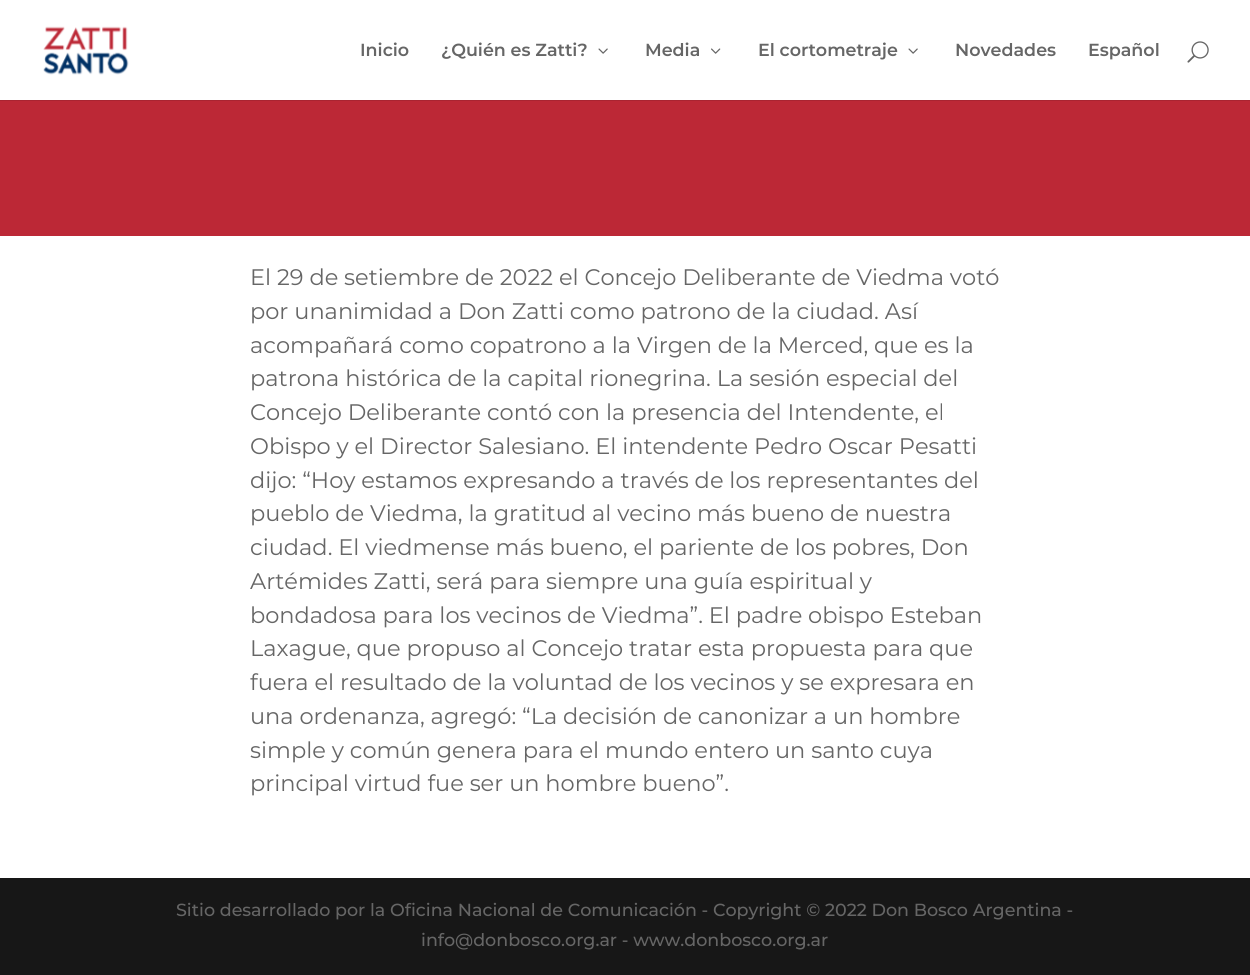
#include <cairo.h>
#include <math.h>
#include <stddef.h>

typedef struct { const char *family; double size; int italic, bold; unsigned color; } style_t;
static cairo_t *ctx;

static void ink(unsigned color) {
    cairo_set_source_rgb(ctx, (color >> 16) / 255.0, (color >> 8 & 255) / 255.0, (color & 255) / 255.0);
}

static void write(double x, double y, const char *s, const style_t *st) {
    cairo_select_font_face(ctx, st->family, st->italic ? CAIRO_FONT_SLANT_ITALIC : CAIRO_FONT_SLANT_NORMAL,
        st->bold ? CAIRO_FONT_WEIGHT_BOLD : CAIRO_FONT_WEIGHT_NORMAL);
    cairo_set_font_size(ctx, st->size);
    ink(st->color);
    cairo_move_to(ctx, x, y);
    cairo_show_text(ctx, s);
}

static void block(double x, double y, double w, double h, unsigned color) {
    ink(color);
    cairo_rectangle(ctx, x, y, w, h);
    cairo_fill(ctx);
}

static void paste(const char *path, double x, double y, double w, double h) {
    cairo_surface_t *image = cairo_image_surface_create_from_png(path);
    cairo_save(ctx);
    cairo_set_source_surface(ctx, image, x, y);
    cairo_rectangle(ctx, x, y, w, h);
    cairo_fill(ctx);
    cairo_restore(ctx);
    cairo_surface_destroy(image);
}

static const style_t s1 = {"Montserrat SemiBold", 17.5, 0, 0, 0x666666};
static const style_t s2 = {"Montserrat", 22.5, 0, 0, 0x666666};
static const style_t s3 = {"Montserrat Medium", 17.5, 0, 0, 0x666666};

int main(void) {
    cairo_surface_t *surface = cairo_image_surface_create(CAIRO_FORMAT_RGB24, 1250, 975);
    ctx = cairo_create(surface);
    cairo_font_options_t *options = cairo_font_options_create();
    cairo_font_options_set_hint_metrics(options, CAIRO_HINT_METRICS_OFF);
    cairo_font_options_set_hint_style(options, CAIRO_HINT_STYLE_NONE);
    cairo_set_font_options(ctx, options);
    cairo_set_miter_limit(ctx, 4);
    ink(0xffffff);
    cairo_paint(ctx);
    block(0, 100, 1250, 1, 0xa92431);
    paste("pic1.png", 43, 26, 86, 49);
    write(360, 56, "Inicio", &s1);
    write(441, 56, "¿Quién es Zatti?", &s1);
    paste("pic2.png", 598, 48, 10, 6);
    write(645, 56, "Media", &s1);
    paste("pic3.png", 711, 48, 10, 6);
    write(758, 56, "El cortometraje", &s1);
    paste("pic2.png", 908, 48, 10, 6);
    write(955, 56, "Novedades", &s1);
    write(1088, 56, "Español", &s1);
    paste("pic4.png", 1187, 41, 22, 22);
    block(0, 101, 1250, 135, 0xbc2836);
    write(250, 285, "El 29 de setiembre de 2022 el Concejo Deliberante de Viedma votó", &s2);
    write(250, 319, "por unanimidad a Don Zatti como patrono de la ciudad. Así", &s2);
    write(250, 353, "acompañará como copatrono a la Virgen de la Merced, que es la", &s2);
    write(250, 386, "patrona histórica de la capital rionegrina. La sesión especial del", &s2);
    write(250, 420, "Concejo Deliberante contó con la presencia del Intendente, el", &s2);
    write(250, 454, "Obispo y el Director Salesiano. El intendente Pedro Oscar Pesatti", &s2);
    write(250, 488, "dijo: “Hoy estamos expresando a través de los representantes del", &s2);
    write(250, 521, "pueblo de Viedma, la gratitud al vecino más bueno de nuestra", &s2);
    write(250, 555, "ciudad. El viedmense más bueno, el pariente de los pobres, Don", &s2);
    write(250, 589, "Artémides Zatti, será para siempre una guía espiritual y", &s2);
    write(250, 623, "bondadosa para los vecinos de Viedma”. El padre obispo Esteban", &s2);
    write(250, 656, "Laxague, que propuso al Concejo tratar esta propuesta para que", &s2);
    write(250, 690, "fuera el resultado de la voluntad de los vecinos y se expresara en", &s2);
    write(250, 724, "una ordenanza, agregó: “La decisión de canonizar a un hombre", &s2);
    write(250, 758, "simple y común genera para el mundo entero un santo cuya", &s2);
    write(250, 791, "principal virtud fue ser un hombre bueno”.", &s2);
    block(0, 878, 1250, 97, 0x171717);
    write(176, 916, "Sitio desarrollado por la Oficina Nacional de Comunicación - Copyright © 2022 Don Bosco Argentina -", &s3);
    write(421, 946, "info@donbosco.org.ar - www.donbosco.org.ar", &s3);
    cairo_surface_write_to_png(surface, "screenshot.png");
    cairo_font_options_destroy(options);
    cairo_destroy(ctx);
    cairo_surface_destroy(surface);
    return 0;
}
